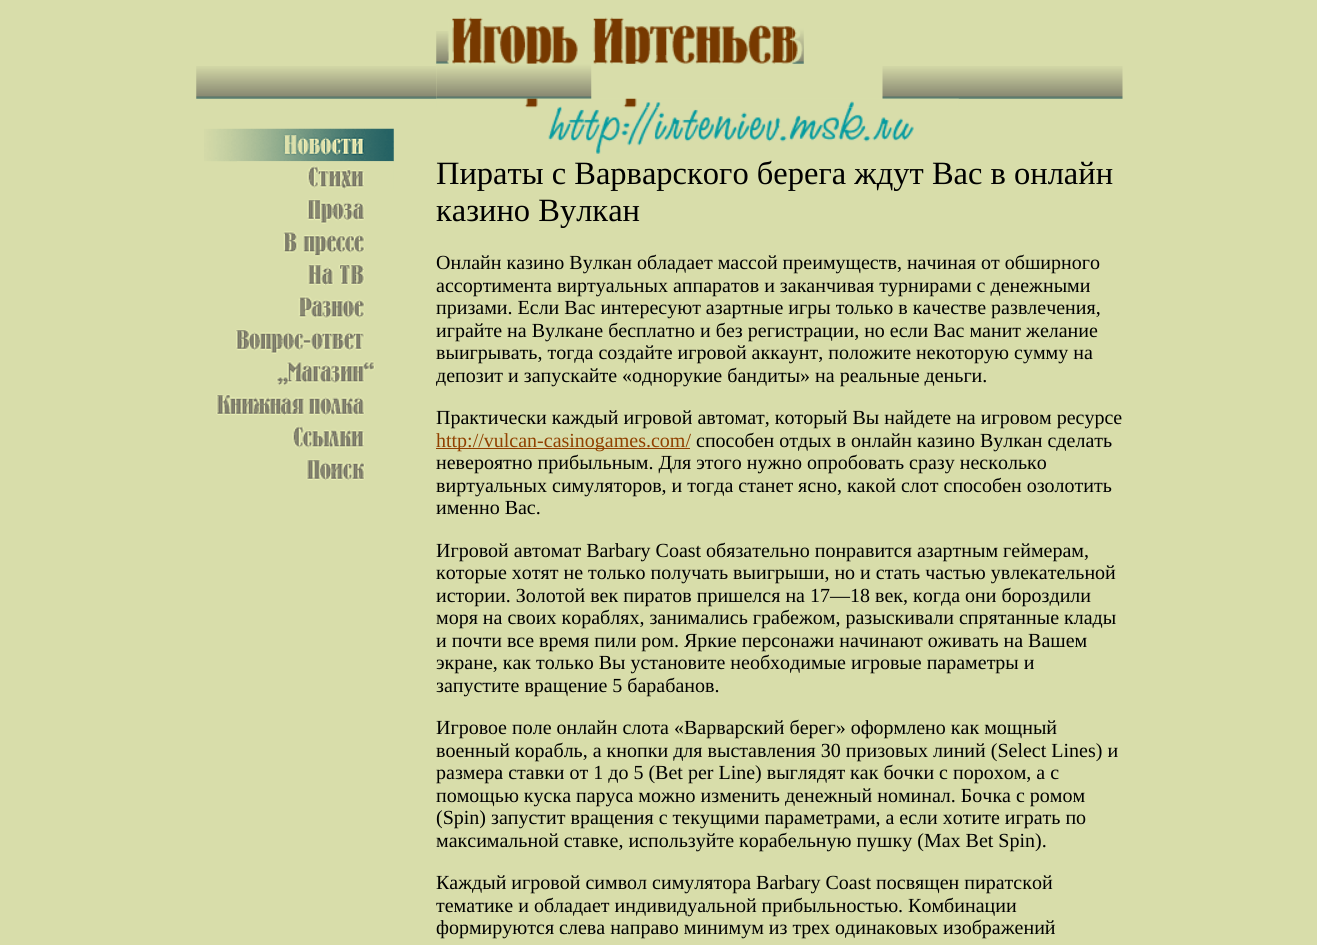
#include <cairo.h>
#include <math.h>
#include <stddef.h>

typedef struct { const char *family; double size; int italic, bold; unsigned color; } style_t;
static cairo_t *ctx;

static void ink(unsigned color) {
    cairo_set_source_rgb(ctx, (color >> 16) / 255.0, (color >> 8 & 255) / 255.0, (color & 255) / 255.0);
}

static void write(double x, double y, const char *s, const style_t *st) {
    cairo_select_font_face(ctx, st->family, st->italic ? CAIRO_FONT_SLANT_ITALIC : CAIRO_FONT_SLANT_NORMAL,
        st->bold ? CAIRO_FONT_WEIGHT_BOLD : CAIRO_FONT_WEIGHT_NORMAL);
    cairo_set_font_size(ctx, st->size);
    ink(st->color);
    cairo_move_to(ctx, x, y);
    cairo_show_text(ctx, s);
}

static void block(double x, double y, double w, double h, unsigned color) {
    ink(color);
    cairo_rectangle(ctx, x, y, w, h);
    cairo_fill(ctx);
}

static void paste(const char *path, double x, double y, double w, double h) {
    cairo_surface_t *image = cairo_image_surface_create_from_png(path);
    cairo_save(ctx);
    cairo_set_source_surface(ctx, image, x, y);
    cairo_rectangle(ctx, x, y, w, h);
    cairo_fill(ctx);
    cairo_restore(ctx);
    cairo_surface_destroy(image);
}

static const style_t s1 = {"Liberation Serif", 32.5, 0, 0, 0x000000};
static const style_t s2 = {"Liberation Serif", 20, 0, 0, 0x000000};
static const style_t s3 = {"Liberation Serif", 20, 0, 0, 0x904000};

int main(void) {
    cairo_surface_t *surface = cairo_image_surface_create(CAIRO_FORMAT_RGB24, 1317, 945);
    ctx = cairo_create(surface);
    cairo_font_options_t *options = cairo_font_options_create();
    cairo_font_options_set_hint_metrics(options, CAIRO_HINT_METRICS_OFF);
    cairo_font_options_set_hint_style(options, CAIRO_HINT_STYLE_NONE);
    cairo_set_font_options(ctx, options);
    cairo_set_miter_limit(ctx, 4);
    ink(0xd8ddaa);
    cairo_paint(ctx);
    paste("pic1.png", 196, 66, 241, 33);
    paste("pic2.png", 436, 31, 13, 33);
    paste("pic3.png", 448, 17, 345, 47);
    paste("pic4.png", 792, 27, 12, 37);
    paste("pic5.png", 436, 63, 156, 36);
    paste("pic6.png", 882, 66, 241, 33);
    paste("pic7.png", 204, 128, 190, 34);
    paste("pic8.png", 237, 161, 157, 28);
    paste("pic9.png", 307, 199, 58, 25);
    paste("pic10.png", 283, 231, 82, 26);
    paste("pic11.png", 307, 264, 58, 21);
    paste("pic12.png", 298, 296, 67, 23);
    paste("pic13.png", 235, 329, 130, 25);
    paste("pic14.png", 276, 361, 99, 24);
    paste("pic15.png", 216, 394, 149, 21);
    paste("pic16.png", 292, 426, 72, 22);
    paste("pic17.png", 306, 459, 59, 21);
    paste("pic18.png", 436, 98, 523, 10);
    paste("pic19.png", 526, 107, 388, 47);
    write(436, 184, "Пираты с Варварского берега ждут Вас в онлайн", &s1);
    write(436, 221, "казино Вулкан", &s1);
    write(436, 269, "Онлайн казино Вулкан обладает массой преимуществ, начиная от обширного", &s2);
    write(436, 292, "ассортимента виртуальных аппаратов и заканчивая турнирами с денежными", &s2);
    write(436, 314, "призами. Если Вас интересуют азартные игры только в качестве развлечения,", &s2);
    write(436, 337, "играйте на Вулкане бесплатно и без регистрации, но если Вас манит желание", &s2);
    write(436, 359, "выигрывать, тогда создайте игровой аккаунт, положите некоторую сумму на", &s2);
    write(436, 382, "депозит и запускайте «однорукие бандиты» на реальные деньги.", &s2);
    write(436, 424, "Практически каждый игровой автомат, который Вы найдете на игровом ресурсе", &s2);
    block(436, 448, 254, 1, 0x904000);
    write(436, 447, "http://vulcan-casinogames.com/", &s3);
    write(696, 447, "способен отдых в онлайн казино Вулкан сделать", &s2);
    write(436, 469, "невероятно прибыльным. Для этого нужно опробовать сразу несколько", &s2);
    write(436, 492, "виртуальных симуляторов, и тогда станет ясно, какой слот способен озолотить", &s2);
    write(436, 514, "именно Вас.", &s2);
    write(436, 557, "Игровой автомат Barbary Coast обязательно понравится азартным геймерам,", &s2);
    write(436, 579, "которые хотят не только получать выигрыши, но и стать частью увлекательной", &s2);
    write(436, 602, "истории. Золотой век пиратов пришелся на 17—18 век, когда они бороздили", &s2);
    write(436, 624, "моря на своих кораблях, занимались грабежом, разыскивали спрятанные клады", &s2);
    write(436, 647, "и почти все время пили ром. Яркие персонажи начинают оживать на Вашем", &s2);
    write(436, 669, "экране, как только Вы установите необходимые игровые параметры и", &s2);
    write(436, 692, "запустите вращение 5 барабанов.", &s2);
    write(436, 734, "Игровое поле онлайн слота «Варварский берег» оформлено как мощный", &s2);
    write(436, 757, "военный корабль, а кнопки для выставления 30 призовых линий (Select Lines) и", &s2);
    write(436, 779, "размера ставки от 1 до 5 (Bet per Line) выглядят как бочки с порохом, а с", &s2);
    write(436, 802, "помощью куска паруса можно изменить денежный номинал. Бочка с ромом", &s2);
    write(436, 824, "(Spin) запустит вращения с текущими параметрами, а если хотите играть по", &s2);
    write(436, 847, "максимальной ставке, используйте корабельную пушку (Max Bet Spin).", &s2);
    write(436, 889, "Каждый игровой символ симулятора Barbary Coast посвящен пиратской", &s2);
    write(436, 912, "тематике и обладает индивидуальной прибыльностью. Комбинации", &s2);
    write(436, 934, "формируются слева направо минимум из трех одинаковых изображений", &s2);
    cairo_surface_write_to_png(surface, "screenshot.png");
    cairo_font_options_destroy(options);
    cairo_destroy(ctx);
    cairo_surface_destroy(surface);
    return 0;
}
